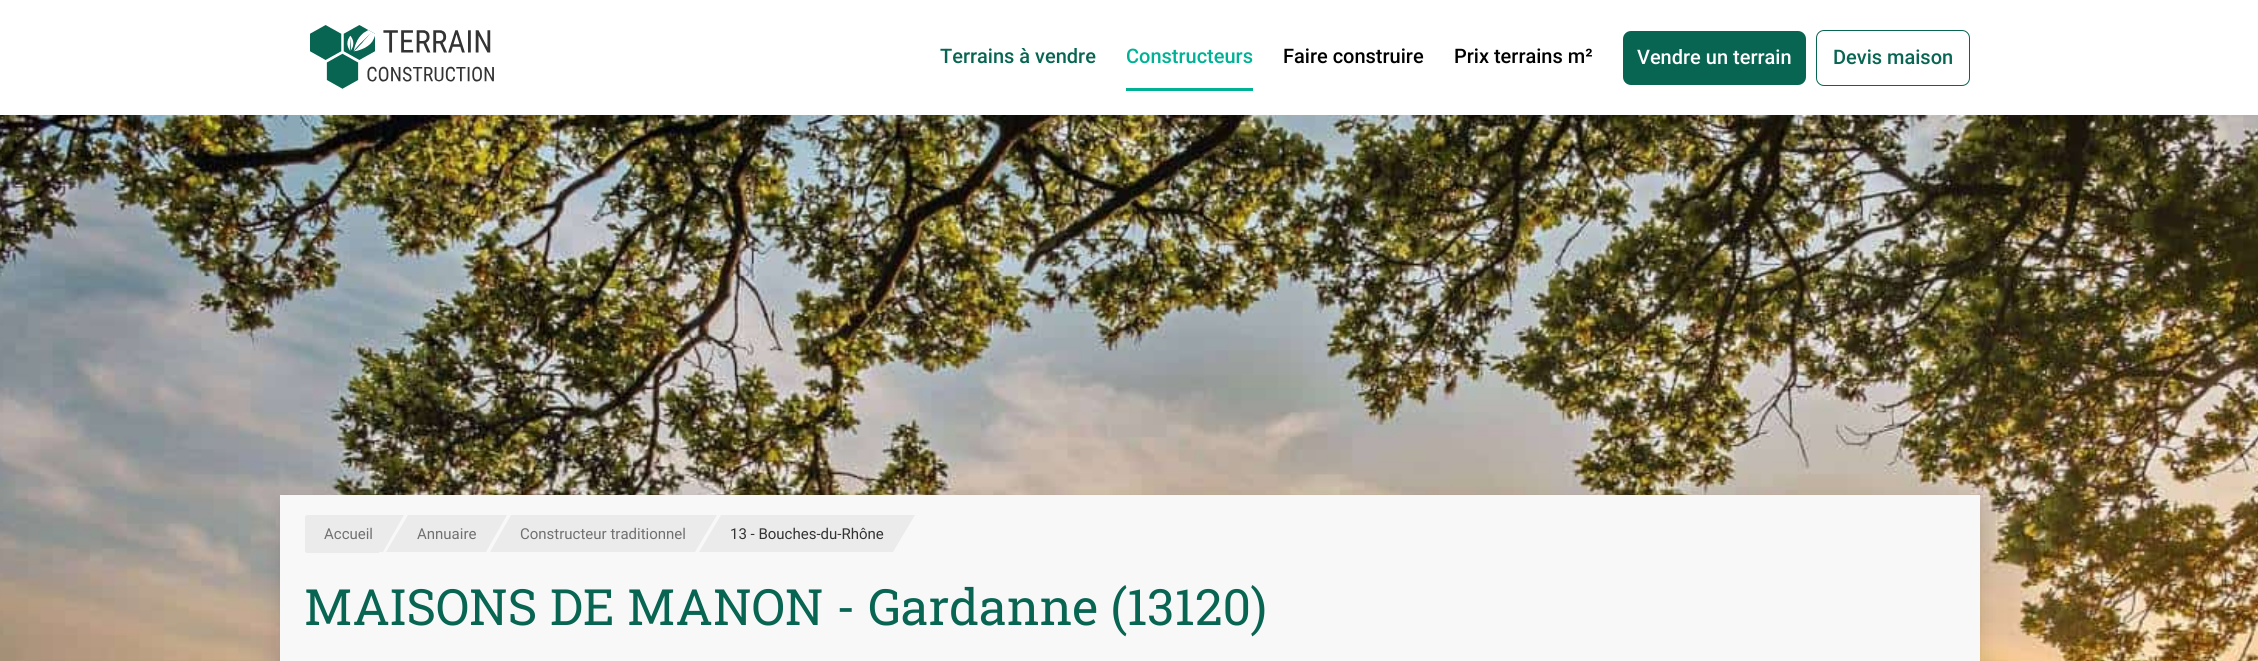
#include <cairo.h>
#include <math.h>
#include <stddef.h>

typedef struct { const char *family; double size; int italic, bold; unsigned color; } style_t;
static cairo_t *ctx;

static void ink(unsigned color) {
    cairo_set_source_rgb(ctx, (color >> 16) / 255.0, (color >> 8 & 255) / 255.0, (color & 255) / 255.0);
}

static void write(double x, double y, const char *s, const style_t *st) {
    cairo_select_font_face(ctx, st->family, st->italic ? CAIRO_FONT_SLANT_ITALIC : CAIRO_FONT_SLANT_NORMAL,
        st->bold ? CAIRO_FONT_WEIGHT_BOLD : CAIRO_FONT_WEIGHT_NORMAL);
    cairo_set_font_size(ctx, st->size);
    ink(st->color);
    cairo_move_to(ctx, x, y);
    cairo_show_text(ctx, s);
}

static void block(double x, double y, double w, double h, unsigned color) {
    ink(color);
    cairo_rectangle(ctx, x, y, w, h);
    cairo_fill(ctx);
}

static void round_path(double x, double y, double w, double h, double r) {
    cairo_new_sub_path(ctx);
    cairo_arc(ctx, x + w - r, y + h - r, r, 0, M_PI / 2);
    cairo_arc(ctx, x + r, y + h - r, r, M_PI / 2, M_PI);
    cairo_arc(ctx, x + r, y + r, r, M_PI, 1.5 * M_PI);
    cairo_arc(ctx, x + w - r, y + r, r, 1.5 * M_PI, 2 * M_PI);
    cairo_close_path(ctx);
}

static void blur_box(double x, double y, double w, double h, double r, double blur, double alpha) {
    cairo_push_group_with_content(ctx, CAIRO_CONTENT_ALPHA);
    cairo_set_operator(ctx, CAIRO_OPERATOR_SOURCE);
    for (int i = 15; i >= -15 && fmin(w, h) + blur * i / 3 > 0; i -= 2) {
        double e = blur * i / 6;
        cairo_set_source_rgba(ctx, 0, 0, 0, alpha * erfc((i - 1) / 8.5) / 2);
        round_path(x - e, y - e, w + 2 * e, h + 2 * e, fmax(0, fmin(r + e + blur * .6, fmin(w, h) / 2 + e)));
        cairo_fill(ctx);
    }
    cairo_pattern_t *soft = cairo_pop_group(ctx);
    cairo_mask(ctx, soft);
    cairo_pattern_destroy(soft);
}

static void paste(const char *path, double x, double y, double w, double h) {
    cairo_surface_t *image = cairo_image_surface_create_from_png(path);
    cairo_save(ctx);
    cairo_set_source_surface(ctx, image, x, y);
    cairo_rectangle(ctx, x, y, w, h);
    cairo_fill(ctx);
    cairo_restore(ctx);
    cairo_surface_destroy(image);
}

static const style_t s1 = {"Roboto Medium", 20, 0, 0, 0x086552};
static const style_t s2 = {"Roboto Medium", 20, 0, 0, 0x00b295};
static const style_t s3 = {"Roboto Medium", 20, 0, 0, 0x000000};
static const style_t s4 = {"Roboto Medium", 20, 0, 0, 0xffffff};
static const style_t s5 = {"Roboto", 15, 0, 0, 0x707070};
static const style_t s6 = {"Roboto", 15, 0, 0, 0x333333};
static const style_t s7 = {"Roboto Slab", 50, 0, 0, 0x086552};

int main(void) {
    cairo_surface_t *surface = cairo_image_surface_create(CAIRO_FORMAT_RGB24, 2258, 661);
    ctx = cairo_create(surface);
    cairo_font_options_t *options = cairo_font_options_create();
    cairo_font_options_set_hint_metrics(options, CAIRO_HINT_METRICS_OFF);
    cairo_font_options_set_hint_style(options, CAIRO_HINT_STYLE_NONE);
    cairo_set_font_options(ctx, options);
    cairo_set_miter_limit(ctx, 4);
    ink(0xffffff);
    cairo_paint(ctx);
    paste("pic1.png", 310, 25, 184, 64);
    write(940, 63, "Terrains à vendre", &s1);
    block(1126, 88, 127, 3, 0x00b295);
    write(1126, 63, "Constructeurs", &s2);
    write(1283, 63, "Faire construire", &s3);
    write(1454, 63, "Prix terrains m²", &s3);
    ink(0x086552);
    round_path(1623, 31, 183, 54, 8);
    cairo_fill(ctx);
    write(1637, 64, "Vendre un terrain", &s4);
    round_path(1816.5, 30.5, 153, 55, 7.5);
    ink(0x086552);
    cairo_set_line_width(ctx, 1);
    cairo_stroke(ctx);
    write(1833, 64, "Devis maison", &s1);
    paste("pic2.png", 0, 115, 2258, 546);
    ink(0x333333);
    blur_box(280, 503, 1700, 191, 0, 11, 0.2);
    block(280, 495, 1700, 166, 0xf8f8f8);
    ink(0xebebeb);
    cairo_new_path(ctx);
    cairo_move_to(ctx, 307.5, 515);
    cairo_line_to(ctx, 379, 515);
    cairo_line_to(ctx, 379, 553);
    cairo_line_to(ctx, 307.5, 553);
    cairo_curve_to(ctx, 306, 553, 305, 552, 305, 550.5);
    cairo_line_to(ctx, 305, 517.5);
    cairo_curve_to(ctx, 305, 516, 306, 515, 307.5, 515);
    cairo_close_path(ctx);
    cairo_fill(ctx);
    cairo_new_path(ctx);
    cairo_move_to(ctx, 325, 515);
    cairo_line_to(ctx, 305, 550);
    cairo_line_to(ctx, 305, 552);
    cairo_line_to(ctx, 383, 552);
    cairo_line_to(ctx, 404, 515);
    cairo_close_path(ctx);
    cairo_fill(ctx);
    write(324, 539, "Accueil", &s5);
    ink(0xebebeb);
    cairo_new_path(ctx);
    cairo_move_to(ctx, 408, 515);
    cairo_line_to(ctx, 507, 515);
    cairo_line_to(ctx, 486, 552);
    cairo_line_to(ctx, 386, 552);
    cairo_close_path(ctx);
    cairo_fill(ctx);
    write(417, 539, "Annuaire", &s5);
    ink(0xebebeb);
    cairo_new_path(ctx);
    cairo_move_to(ctx, 511, 515);
    cairo_line_to(ctx, 717, 515);
    cairo_line_to(ctx, 695, 552);
    cairo_line_to(ctx, 490, 552);
    cairo_close_path(ctx);
    cairo_fill(ctx);
    write(520, 539, "Constructeur traditionnel", &s5);
    ink(0xebebeb);
    cairo_new_path(ctx);
    cairo_move_to(ctx, 721, 515);
    cairo_line_to(ctx, 915, 515);
    cairo_line_to(ctx, 893, 552);
    cairo_line_to(ctx, 699, 552);
    cairo_close_path(ctx);
    cairo_fill(ctx);
    write(730, 539, "13 - Bouches-du-Rhône", &s6);
    write(304, 625, "MAISONS DE MANON - Gardanne (13120)", &s7);
    cairo_surface_write_to_png(surface, "screenshot.png");
    cairo_font_options_destroy(options);
    cairo_destroy(ctx);
    cairo_surface_destroy(surface);
    return 0;
}
